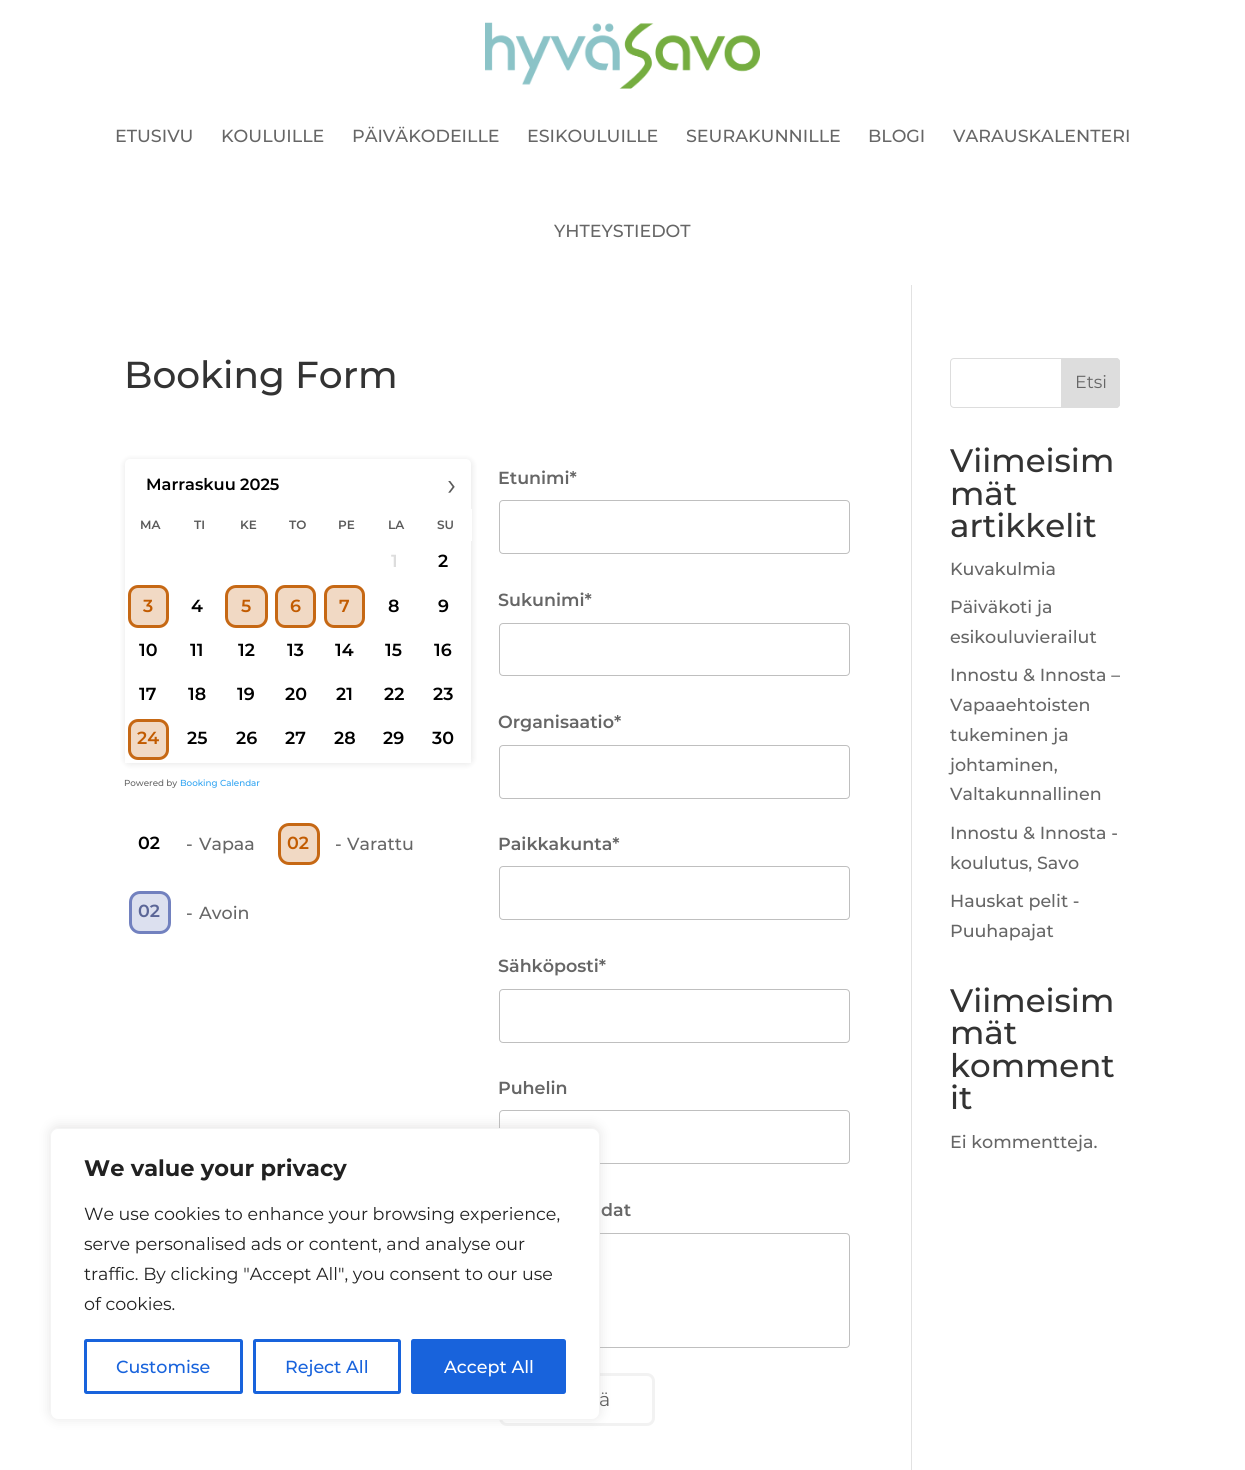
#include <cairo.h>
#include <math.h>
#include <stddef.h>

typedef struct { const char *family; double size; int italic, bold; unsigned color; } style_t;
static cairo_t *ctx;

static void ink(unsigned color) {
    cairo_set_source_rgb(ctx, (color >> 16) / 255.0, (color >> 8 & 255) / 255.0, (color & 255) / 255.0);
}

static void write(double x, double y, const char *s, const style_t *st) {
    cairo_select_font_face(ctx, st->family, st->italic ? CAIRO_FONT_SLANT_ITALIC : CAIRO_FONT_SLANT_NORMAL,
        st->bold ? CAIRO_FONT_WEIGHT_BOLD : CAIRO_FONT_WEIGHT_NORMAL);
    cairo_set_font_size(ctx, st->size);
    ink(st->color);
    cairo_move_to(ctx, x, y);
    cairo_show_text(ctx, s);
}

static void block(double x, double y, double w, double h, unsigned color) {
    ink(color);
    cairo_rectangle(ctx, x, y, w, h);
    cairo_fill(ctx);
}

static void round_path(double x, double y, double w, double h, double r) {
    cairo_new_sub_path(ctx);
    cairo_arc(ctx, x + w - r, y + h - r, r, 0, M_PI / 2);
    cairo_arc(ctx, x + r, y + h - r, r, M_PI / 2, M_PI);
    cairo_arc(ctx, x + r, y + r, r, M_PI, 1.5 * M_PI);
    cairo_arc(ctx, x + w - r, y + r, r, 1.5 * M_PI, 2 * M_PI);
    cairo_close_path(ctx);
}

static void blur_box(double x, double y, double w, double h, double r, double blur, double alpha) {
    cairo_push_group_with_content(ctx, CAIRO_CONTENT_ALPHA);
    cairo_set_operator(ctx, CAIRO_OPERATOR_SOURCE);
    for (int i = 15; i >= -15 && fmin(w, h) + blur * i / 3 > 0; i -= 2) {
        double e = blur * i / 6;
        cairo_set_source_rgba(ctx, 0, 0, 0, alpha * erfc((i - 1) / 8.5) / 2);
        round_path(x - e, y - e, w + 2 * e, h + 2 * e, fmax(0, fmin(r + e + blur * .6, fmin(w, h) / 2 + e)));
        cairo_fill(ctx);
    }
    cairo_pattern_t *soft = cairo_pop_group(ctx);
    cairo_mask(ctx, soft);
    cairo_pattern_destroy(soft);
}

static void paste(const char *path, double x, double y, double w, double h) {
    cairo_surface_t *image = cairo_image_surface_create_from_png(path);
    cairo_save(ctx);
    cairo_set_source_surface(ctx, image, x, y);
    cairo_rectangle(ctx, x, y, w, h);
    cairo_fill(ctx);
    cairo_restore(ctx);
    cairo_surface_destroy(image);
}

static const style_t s1 = {"Montserrat Medium", 17.5, 0, 0, 0x666666};
static const style_t s2 = {"Montserrat Medium", 37.5, 0, 0, 0x333333};
static const style_t s3 = {"Montserrat SemiBold", 16.25, 0, 0, 0x000000};
static const style_t s4 = {"Montserrat SemiBold", 12, 0, 0, 0x5a5a5a};
static const style_t s5 = {"Montserrat SemiBold", 17.5, 0, 0, 0xdddddd};
static const style_t s6 = {"Montserrat SemiBold", 17.5, 0, 0, 0x000000};
static const style_t s7 = {"Montserrat SemiBold", 17.5, 0, 0, 0xc25b00};
static const style_t s8 = {"Montserrat", 31, 0, 0, 0x5a5a5a};
static const style_t s9 = {"Montserrat Medium", 8.75, 0, 0, 0x666666};
static const style_t s10 = {"Montserrat Medium", 8.75, 0, 0, 0x2ea3f2};
static const style_t s11 = {"Montserrat SemiBold", 17.5, 0, 0, 0x5b6697};
static const style_t s12 = {"Montserrat SemiBold", 17.5, 0, 0, 0x666666};
static const style_t s13 = {"Montserrat", 19, 0, 0, 0x5a5a5a};
static const style_t s14 = {"Montserrat", 17.5, 0, 0, 0x666666};
static const style_t s15 = {"Montserrat Medium", 32.5, 0, 0, 0x333333};
static const style_t s16 = {"Montserrat", 22.5, 0, 1, 0x212121};
static const style_t s17 = {"Montserrat", 17.5, 0, 0, 0x212121};
static const style_t s18 = {"Montserrat Medium", 17.5, 0, 0, 0x1863dc};
static const style_t s19 = {"Montserrat Medium", 17.5, 0, 0, 0xffffff};

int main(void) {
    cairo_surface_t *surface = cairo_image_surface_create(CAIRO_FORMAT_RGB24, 1245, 1470);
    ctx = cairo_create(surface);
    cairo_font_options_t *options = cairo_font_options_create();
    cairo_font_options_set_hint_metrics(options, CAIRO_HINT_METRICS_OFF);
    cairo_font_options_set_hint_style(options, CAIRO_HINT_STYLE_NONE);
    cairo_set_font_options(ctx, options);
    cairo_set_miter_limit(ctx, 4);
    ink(0xffffff);
    cairo_paint(ctx);
    paste("pic1.png", 485, 22, 275, 67);
    write(115, 142, "ETUSIVU", &s1);
    write(221, 142, "KOULUILLE", &s1);
    write(352, 142, "PÄIVÄKODEILLE", &s1);
    write(527, 142, "ESIKOULUILLE", &s1);
    write(686, 142, "SEURAKUNNILLE", &s1);
    write(868, 142, "BLOGI", &s1);
    write(953, 142, "VARAUSKALENTERI", &s1);
    write(554, 237, "YHTEYSTIEDOT", &s1);
    block(911, 285, 1, 1185, 0xe2e2e2);
    write(124, 388, "Booking Form", &s2);
    ink(0x000000);
    blur_box(124, 459, 349, 306, 6, 3, 0.08);
    ink(0xffffff);
    round_path(125, 459, 346, 304, 5);
    cairo_fill(ctx);
    write(146, 490, "Marraskuu", &s3);
    write(240, 490, "2025", &s3);
    block(125, 759, 346, 4, 0xffffff);
    write(140, 529, "MA", &s4);
    write(194, 529, "TI", &s4);
    write(240, 529, "KE", &s4);
    write(289, 529, "TO", &s4);
    write(338, 529, "PE", &s4);
    write(388, 529, "LA", &s4);
    block(471, 509, 1, 32, 0xffffff);
    write(437, 529, "SU", &s4);
    write(391, 567, "1", &s5);
    write(438, 567, "2", &s6);
    ink(0xf1d9c4);
    round_path(129.5, 586.5, 38, 40, 8.5);
    cairo_fill_preserve(ctx);
    ink(0xc66814);
    cairo_set_line_width(ctx, 3);
    cairo_stroke(ctx);
    write(143, 612, "3", &s7);
    write(191, 612, "4", &s6);
    ink(0xf1d9c4);
    round_path(226.5, 586.5, 40, 40, 9.5);
    cairo_fill_preserve(ctx);
    ink(0xc66814);
    cairo_stroke(ctx);
    write(241, 612, "5", &s7);
    ink(0xf1d9c4);
    round_path(276.5, 586.5, 38, 40, 8.5);
    cairo_fill_preserve(ctx);
    ink(0xc66814);
    cairo_stroke(ctx);
    write(290, 612, "6", &s7);
    ink(0xf1d9c4);
    round_path(325.5, 586.5, 38, 40, 8.5);
    cairo_fill_preserve(ctx);
    ink(0xc66814);
    cairo_stroke(ctx);
    write(339, 612, "7", &s7);
    write(388, 612, "8", &s6);
    write(438, 612, "9", &s6);
    write(139, 656, "10", &s6);
    write(190, 656, "11", &s6);
    write(238, 656, "12", &s6);
    write(287, 656, "13", &s6);
    write(335, 656, "14", &s6);
    write(385, 656, "15", &s6);
    write(434, 656, "16", &s6);
    write(139, 700, "17", &s6);
    write(188, 700, "18", &s6);
    write(237, 700, "19", &s6);
    write(285, 700, "20", &s6);
    write(336, 700, "21", &s6);
    write(384, 700, "22", &s6);
    write(433, 700, "23", &s6);
    ink(0xf1d9c4);
    round_path(129.5, 720.5, 38, 38, 8.5);
    cairo_fill_preserve(ctx);
    ink(0xc66814);
    cairo_stroke(ctx);
    write(137, 744, "24", &s7);
    write(187, 744, "25", &s6);
    write(236, 744, "26", &s6);
    write(285, 744, "27", &s6);
    write(334, 744, "28", &s6);
    write(383, 744, "29", &s6);
    write(432, 744, "30", &s6);
    write(447, 495, "›", &s8);
    write(124, 786, "Powered by", &s9);
    write(180, 786, "Booking Calendar", &s10);
    write(138, 849, "02", &s6);
    write(186, 850, "-", &s1);
    write(199, 850, "Vapaa", &s1);
    ink(0xf1d9c4);
    round_path(279.5, 824.5, 39, 39, 9.5);
    cairo_fill_preserve(ctx);
    ink(0xc66814);
    cairo_stroke(ctx);
    write(287, 849, "02", &s7);
    write(335, 850, "-", &s1);
    write(347, 850, "Varattu", &s1);
    ink(0xdce0ef);
    round_path(130.5, 892.5, 39, 40, 9.5);
    cairo_fill_preserve(ctx);
    ink(0x7281bf);
    cairo_stroke(ctx);
    write(138, 917, "02", &s11);
    write(186, 919, "-", &s1);
    write(199, 919, "Avoin", &s1);
    write(498, 484, "Etunimi*", &s12);
    round_path(499.5, 500.5, 350, 53, 3.5);
    ink(0xbfbfbf);
    cairo_set_line_width(ctx, 1);
    cairo_stroke(ctx);
    write(498, 606, "Sukunimi*", &s12);
    round_path(499.5, 623.5, 350, 52, 3.5);
    ink(0xbfbfbf);
    cairo_stroke(ctx);
    write(498, 728, "Organisaatio*", &s12);
    round_path(499.5, 745.5, 350, 53, 3.5);
    ink(0xbfbfbf);
    cairo_stroke(ctx);
    write(498, 850, "Paikkakunta*", &s12);
    round_path(499.5, 866.5, 350, 53, 3.5);
    ink(0xbfbfbf);
    cairo_stroke(ctx);
    write(498, 972, "Sähköposti*", &s12);
    round_path(499.5, 989.5, 350, 53, 3.5);
    ink(0xbfbfbf);
    cairo_stroke(ctx);
    write(498, 1094, "Puhelin", &s12);
    round_path(499.5, 1110.5, 350, 53, 3.5);
    ink(0xbfbfbf);
    cairo_stroke(ctx);
    write(601, 1216, "dat", &s12);
    round_path(499.5, 1233.5, 350, 114, 3.5);
    ink(0xbfbfbf);
    cairo_stroke(ctx);
    round_path(500.5, 1374.5, 153, 50, 6.5);
    ink(0xf2f2f2);
    cairo_set_line_width(ctx, 3);
    cairo_stroke(ctx);
    write(599, 1406, "ä", &s13);
    round_path(950.5, 358.5, 169, 49, 3.5);
    ink(0xdddddd);
    cairo_set_line_width(ctx, 1);
    cairo_stroke(ctx);
    cairo_new_path(ctx);
    cairo_move_to(ctx, 1061.5, 358.5);
    cairo_line_to(ctx, 1116, 358.5);
    cairo_curve_to(ctx, 1118, 358.5, 1119.5, 360, 1119.5, 362);
    cairo_line_to(ctx, 1119.5, 404);
    cairo_curve_to(ctx, 1119.5, 406, 1118, 407.5, 1116, 407.5);
    cairo_line_to(ctx, 1061.5, 407.5);
    cairo_close_path(ctx);
    cairo_fill_preserve(ctx);
    cairo_stroke(ctx);
    write(1075, 388, "Etsi", &s14);
    write(950, 472, "Viimeisim", &s15);
    write(950, 505, "mät", &s15);
    write(950, 537, "artikkelit", &s15);
    write(950, 575, "Kuvakulmia", &s1);
    write(950, 613, "Päiväkoti ja", &s1);
    write(950, 643, "esikouluvierailut", &s1);
    write(950, 681, "Innostu & Innosta –", &s1);
    write(950, 711, "Vapaaehtoisten", &s1);
    write(950, 741, "tukeminen ja", &s1);
    write(950, 771, "johtaminen,", &s1);
    write(950, 800, "Valtakunnallinen", &s1);
    write(950, 839, "Innostu & Innosta -", &s1);
    write(950, 869, "koulutus, Savo", &s1);
    write(950, 907, "Hauskat pelit -", &s1);
    write(950, 937, "Puuhapajat", &s1);
    write(950, 1012, "Viimeisim", &s15);
    write(950, 1044, "mät", &s15);
    write(950, 1077, "komment", &s15);
    write(950, 1109, "it", &s15);
    write(950, 1148, "Ei kommentteja.", &s1);
    ink(0xacabab);
    blur_box(50, 1126, 550, 293, 8, 6, 0.3);
    ink(0xffffff);
    round_path(50.5, 1128.5, 549, 291, 7.5);
    cairo_fill_preserve(ctx);
    ink(0xf4f4f4);
    cairo_stroke(ctx);
    write(84, 1176, "We value your privacy", &s16);
    write(84, 1220, "We use cookies to enhance your browsing experience,", &s17);
    write(84, 1250, "serve personalised ads or content, and analyse our", &s17);
    write(84, 1280, "traffic. By clicking \"Accept All\", you consent to our use", &s17);
    write(84, 1310, "of cookies.", &s17);
    round_path(85.5, 1340.5, 156, 52, 1);
    ink(0x1863dc);
    cairo_set_line_width(ctx, 3);
    cairo_stroke(ctx);
    write(116, 1373, "Customise", &s18);
    round_path(254.5, 1340.5, 145, 52, 1);
    cairo_stroke(ctx);
    write(285, 1373, "Reject All", &s18);
    round_path(412.5, 1340.5, 152, 52, 1);
    cairo_fill_preserve(ctx);
    cairo_stroke(ctx);
    write(444, 1373, "Accept All", &s19);
    cairo_surface_write_to_png(surface, "screenshot.png");
    cairo_font_options_destroy(options);
    cairo_destroy(ctx);
    cairo_surface_destroy(surface);
    return 0;
}
